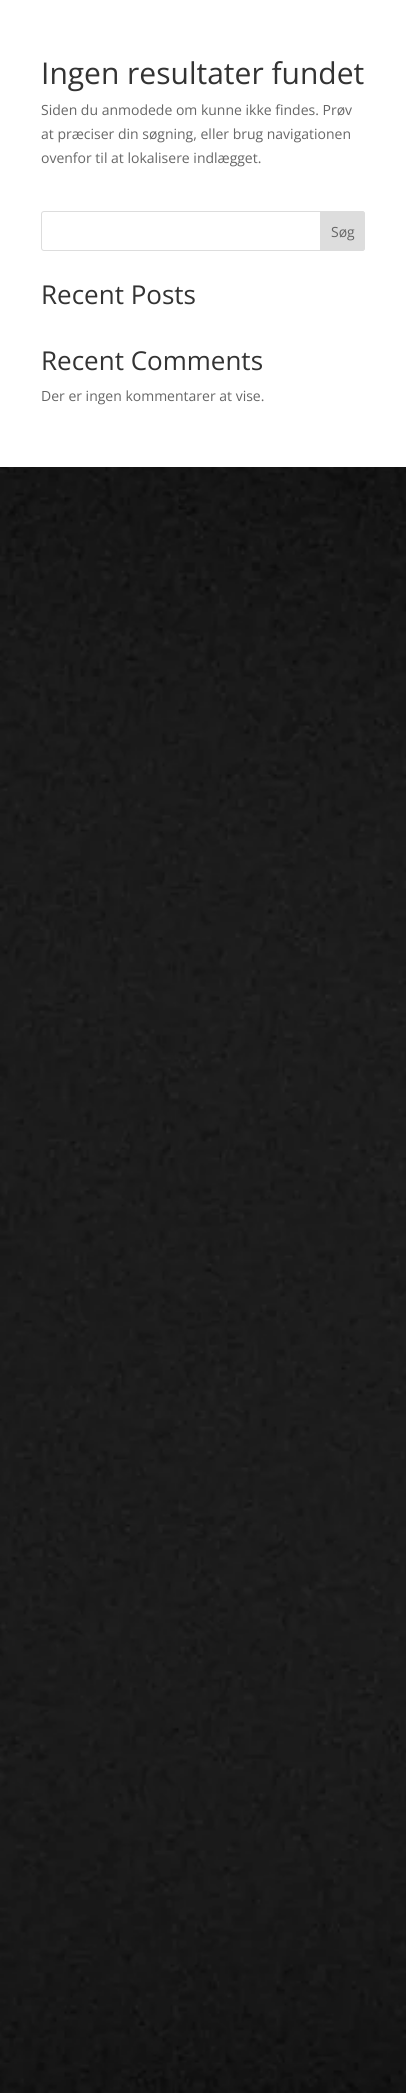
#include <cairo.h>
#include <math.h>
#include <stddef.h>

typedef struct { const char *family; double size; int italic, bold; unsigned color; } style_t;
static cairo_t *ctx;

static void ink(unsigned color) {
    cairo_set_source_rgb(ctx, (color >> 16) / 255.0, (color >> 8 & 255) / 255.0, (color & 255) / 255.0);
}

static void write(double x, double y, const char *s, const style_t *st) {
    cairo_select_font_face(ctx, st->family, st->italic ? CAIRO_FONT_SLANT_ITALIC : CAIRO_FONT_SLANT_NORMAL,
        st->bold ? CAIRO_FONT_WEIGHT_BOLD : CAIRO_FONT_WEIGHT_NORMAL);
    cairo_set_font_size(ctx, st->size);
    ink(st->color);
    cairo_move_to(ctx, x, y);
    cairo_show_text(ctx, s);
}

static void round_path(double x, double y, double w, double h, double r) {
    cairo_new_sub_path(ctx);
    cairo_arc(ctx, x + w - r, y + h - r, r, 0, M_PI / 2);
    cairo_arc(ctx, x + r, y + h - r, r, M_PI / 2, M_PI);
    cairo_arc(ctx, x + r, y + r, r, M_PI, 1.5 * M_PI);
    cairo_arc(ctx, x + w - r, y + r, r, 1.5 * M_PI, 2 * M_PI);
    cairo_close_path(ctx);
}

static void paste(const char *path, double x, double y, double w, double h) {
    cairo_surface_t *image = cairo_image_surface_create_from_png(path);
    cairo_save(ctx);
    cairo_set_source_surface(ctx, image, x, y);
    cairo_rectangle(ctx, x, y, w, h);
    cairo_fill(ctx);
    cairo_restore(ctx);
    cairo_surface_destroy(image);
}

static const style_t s1 = {"Open Sans", 30, 0, 0, 0x333333};
static const style_t s2 = {"Open Sans", 14, 0, 0, 0x666666};
static const style_t s3 = {"Open Sans", 26, 0, 0, 0x333333};

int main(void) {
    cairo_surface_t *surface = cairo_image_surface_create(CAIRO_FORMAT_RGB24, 406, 2093);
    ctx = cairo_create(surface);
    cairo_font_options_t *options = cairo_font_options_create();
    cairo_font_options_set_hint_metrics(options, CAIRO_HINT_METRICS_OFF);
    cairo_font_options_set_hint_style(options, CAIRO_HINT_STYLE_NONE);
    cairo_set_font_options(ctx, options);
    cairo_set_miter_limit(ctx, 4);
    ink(0xffffff);
    cairo_paint(ctx);
    paste("pic1.png", 0, 467, 406, 1626);
    write(41, 84, "Ingen resultater fundet", &s1);
    write(41, 115, "Siden du anmodede om kunne ikke findes. Prøv", &s2);
    write(41, 139, "at præciser din søgning, eller brug navigationen", &s2);
    write(41, 163, "ovenfor til at lokalisere indlægget.", &s2);
    round_path(41.5, 211.5, 323, 39, 2.5);
    ink(0xdddddd);
    cairo_set_line_width(ctx, 1);
    cairo_stroke(ctx);
    cairo_new_path(ctx);
    cairo_move_to(ctx, 320.5, 211.5);
    cairo_line_to(ctx, 362, 211.5);
    cairo_curve_to(ctx, 363.5, 211.5, 364.5, 212.5, 364.5, 214);
    cairo_line_to(ctx, 364.5, 248);
    cairo_curve_to(ctx, 364.5, 249.5, 363.5, 250.5, 362, 250.5);
    cairo_line_to(ctx, 320.5, 250.5);
    cairo_close_path(ctx);
    cairo_fill_preserve(ctx);
    cairo_stroke(ctx);
    write(331, 237, "Søg", &s2);
    write(41, 304, "Recent Posts", &s3);
    write(41, 370, "Recent Comments", &s3);
    write(41, 401, "Der er ingen kommentarer at vise.", &s2);
    cairo_surface_write_to_png(surface, "screenshot.png");
    cairo_font_options_destroy(options);
    cairo_destroy(ctx);
    cairo_surface_destroy(surface);
    return 0;
}
